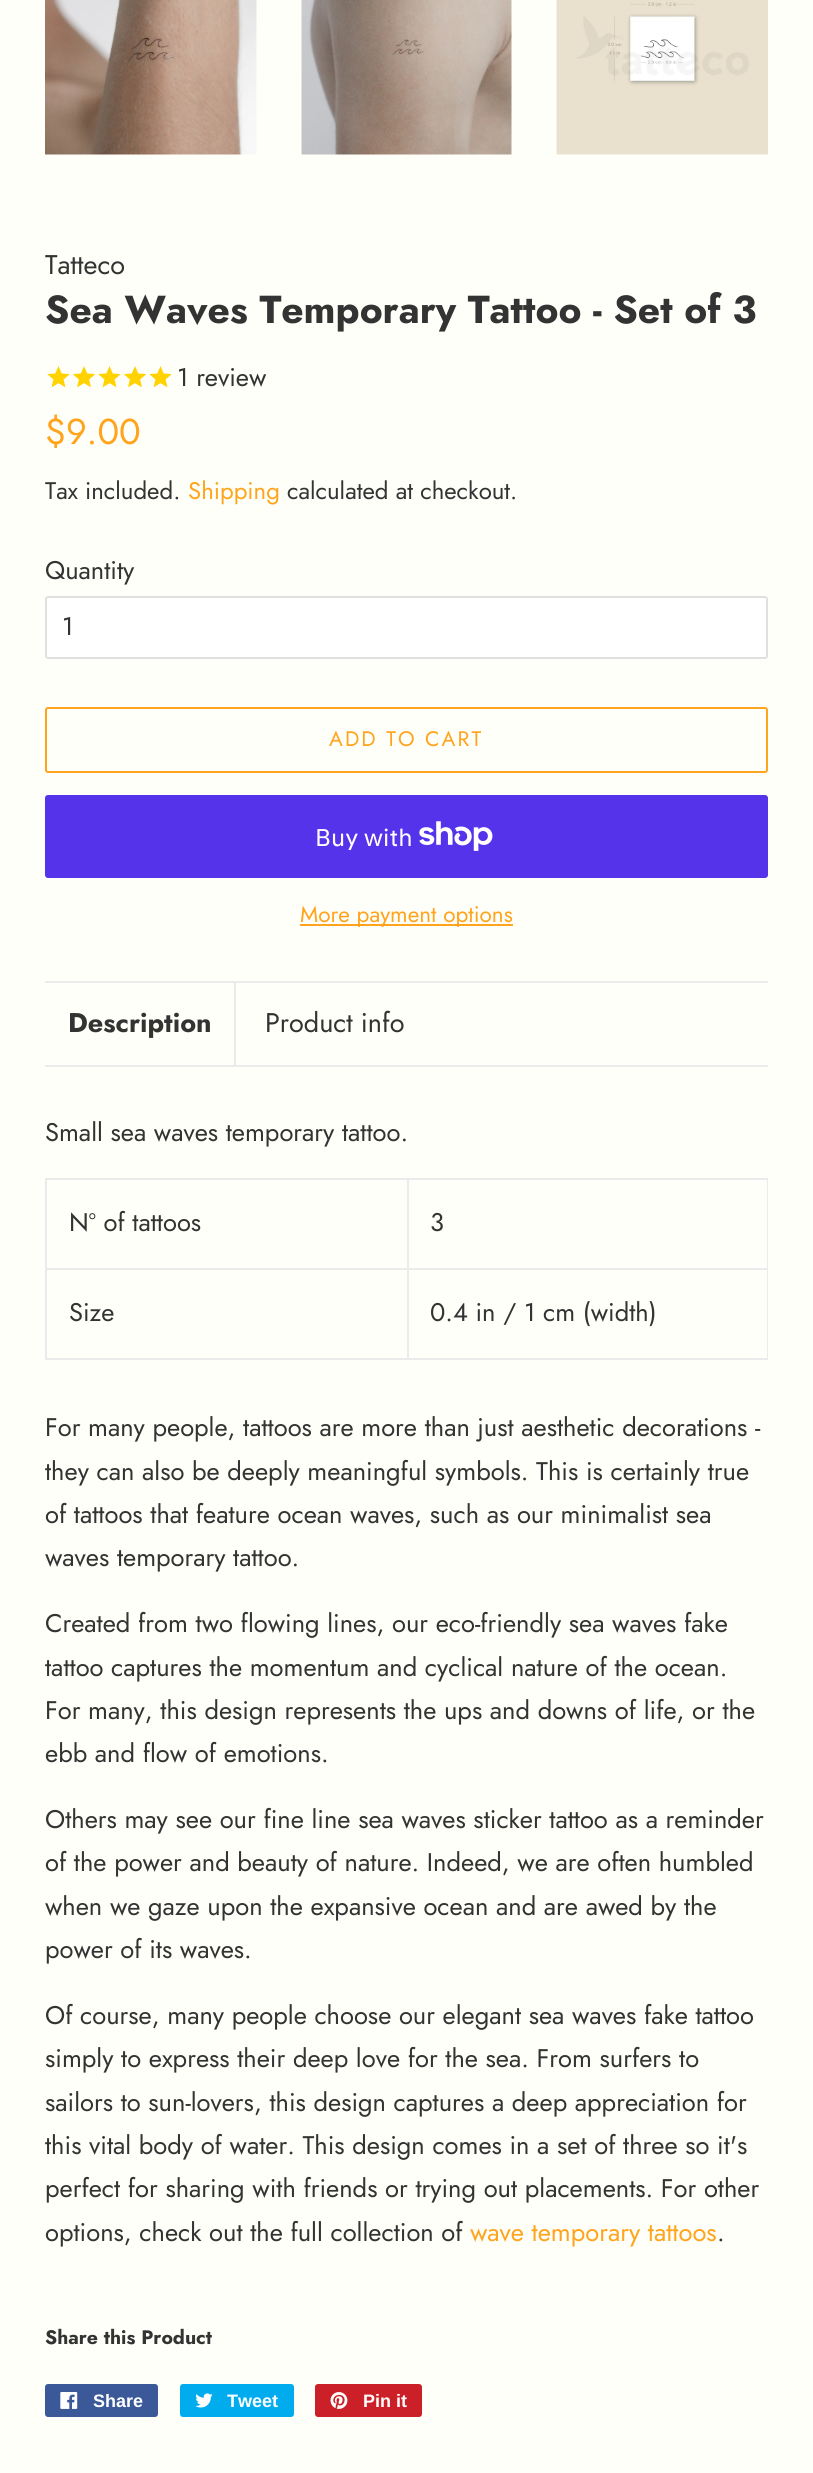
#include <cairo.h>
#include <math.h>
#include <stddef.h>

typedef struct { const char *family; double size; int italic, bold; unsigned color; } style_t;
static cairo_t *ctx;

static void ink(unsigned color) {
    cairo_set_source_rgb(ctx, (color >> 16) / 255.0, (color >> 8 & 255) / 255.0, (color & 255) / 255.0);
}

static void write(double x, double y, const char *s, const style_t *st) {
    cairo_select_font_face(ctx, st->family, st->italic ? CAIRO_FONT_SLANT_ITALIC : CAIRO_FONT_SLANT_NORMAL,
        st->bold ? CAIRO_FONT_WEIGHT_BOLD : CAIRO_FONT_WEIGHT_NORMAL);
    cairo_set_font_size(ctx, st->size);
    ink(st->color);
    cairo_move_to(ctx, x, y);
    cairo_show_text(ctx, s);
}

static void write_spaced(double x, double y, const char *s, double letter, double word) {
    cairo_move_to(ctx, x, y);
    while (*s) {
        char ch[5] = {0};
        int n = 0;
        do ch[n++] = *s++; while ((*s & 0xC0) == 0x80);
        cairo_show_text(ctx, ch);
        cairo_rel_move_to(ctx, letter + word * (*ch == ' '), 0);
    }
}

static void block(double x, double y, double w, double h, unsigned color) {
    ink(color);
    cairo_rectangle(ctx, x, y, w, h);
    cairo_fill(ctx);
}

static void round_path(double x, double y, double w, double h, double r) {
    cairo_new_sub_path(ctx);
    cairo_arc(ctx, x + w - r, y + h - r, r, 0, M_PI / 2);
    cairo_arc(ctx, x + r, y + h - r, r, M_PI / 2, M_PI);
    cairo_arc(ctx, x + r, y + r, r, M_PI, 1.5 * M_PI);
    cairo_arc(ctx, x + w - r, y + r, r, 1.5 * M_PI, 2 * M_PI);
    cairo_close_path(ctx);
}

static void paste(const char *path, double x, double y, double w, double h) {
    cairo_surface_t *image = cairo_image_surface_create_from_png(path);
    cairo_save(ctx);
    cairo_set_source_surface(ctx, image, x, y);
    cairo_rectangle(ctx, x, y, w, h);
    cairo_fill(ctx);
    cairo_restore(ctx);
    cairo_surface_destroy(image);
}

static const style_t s1 = {"Jost", 27, 0, 0, 0x333333};
static const style_t s2 = {"Jost", 39, 0, 1, 0x333333};
static const style_t s3 = {"Jost", 25.5, 0, 0, 0x333333};
static const style_t s4 = {"Jost", 36, 0, 0, 0xffa41c};
static const style_t s5 = {"Jost", 24, 0, 0, 0x333333};
static const style_t s6 = {"Jost", 24, 0, 0, 0xffa41c};
static const style_t s7 = {"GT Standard", 24, 0, 0, 0xffffff};
static const style_t s8 = {"Jost", 22.5, 0, 0, 0xffa41c};
static const style_t s9 = {"Jost", 27, 0, 1, 0x333333};
static const style_t s10 = {"Jost", 25.5, 0, 0, 0xffa41c};
static const style_t s11 = {"Jost", 19.5, 0, 1, 0x333333};
static const style_t s12 = {"Liberation Sans", 18, 0, 1, 0xffffff};

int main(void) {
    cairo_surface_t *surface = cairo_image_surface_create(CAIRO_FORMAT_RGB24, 813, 2473);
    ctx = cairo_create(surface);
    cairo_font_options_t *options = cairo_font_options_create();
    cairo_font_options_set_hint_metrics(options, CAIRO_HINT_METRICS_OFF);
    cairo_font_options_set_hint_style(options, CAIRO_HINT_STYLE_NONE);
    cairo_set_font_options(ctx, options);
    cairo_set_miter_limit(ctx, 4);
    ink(0xfffff9);
    cairo_paint(ctx);
    paste("pic1.png", 45, 0, 212, 155);
    paste("pic2.png", 301, 0, 211, 155);
    paste("pic3.png", 556, 0, 212, 155);
    write(45, 274, "Tatteco", &s1);
    write(45, 323, "Sea Waves Temporary Tattoo - Set of 3", &s2);
    paste("pic4.png", 47, 366, 23, 22);
    paste("pic5.png", 72, 366, 24, 22);
    paste("pic4.png", 98, 366, 23, 22);
    paste("pic5.png", 123, 366, 24, 22);
    paste("pic4.png", 149, 366, 23, 22);
    write(177, 386, "1 review", &s3);
    write(45, 444, "$9.00", &s4);
    write(45, 499, "Tax included.", &s5);
    write(188, 499, "Shipping", &s6);
    write(287, 499, "calculated at checkout.", &s5);
    write(45, 579, "Quantity", &s3);
    ink(0xffffff);
    round_path(45, 596, 723, 63, 3);
    cairo_fill(ctx);
    round_path(46, 597, 721, 61, 2);
    cairo_set_source_rgba(ctx, 0.2, 0.2, 0.2, 0.15);
    cairo_stroke(ctx);
    write(62, 635, "1", &s3);
    round_path(46, 708, 721, 64, 2);
    ink(0xffa41c);
    cairo_stroke(ctx);
    cairo_set_font_size(ctx, 21);
    write_spaced(329, 746, "ADD TO CART", 2.1, 0);
    ink(0x5433eb);
    round_path(45, 795, 723, 83, 3);
    cairo_fill(ctx);
    write(315, 846, "Buy with", &s7);
    paste("pic6.png", 419, 821, 74, 30);
    block(300, 924, 213, 2, 0xffa41c);
    write(300, 922, "More payment options", &s8);
    block(45, 981, 723, 2, 0xebebeb);
    block(45, 1065, 723, 2, 0xebebeb);
    block(234, 983, 2, 82, 0xebebeb);
    write(68, 1032, "Description", &s9);
    write(265, 1032, "Product info", &s1);
    write(45, 1141, "Small sea waves temporary tattoo.", &s3);
    block(407, 1178, 361, 2, 0xebebeb);
    block(407, 1268, 361, 2, 0xebebeb);
    block(767, 1268, 1, 91, 0xebebeb);
    block(407, 1358, 361, 2, 0xebebeb);
    block(407, 1268, 2, 91, 0xebebeb);
    block(45, 1268, 363, 2, 0xebebeb);
    block(407, 1178, 2, 91, 0xebebeb);
    block(45, 1178, 363, 2, 0xebebeb);
    block(45, 1358, 363, 2, 0xebebeb);
    block(45, 1268, 2, 91, 0xebebeb);
    block(45, 1178, 2, 91, 0xebebeb);
    write(69, 1231, "Nº of tattoos", &s3);
    block(767, 1178, 1, 91, 0xebebeb);
    write(430, 1231, "3", &s3);
    write(69, 1321, "Size", &s3);
    write(430, 1321, "0.4 in / 1 cm (width)", &s3);
    write(45, 1436, "For many people, tattoos are more than just aesthetic decorations -", &s3);
    write(45, 1480, "they can also be deeply meaningful symbols. This is certainly true", &s3);
    write(45, 1523, "of tattoos that feature ocean waves, such as our minimalist sea", &s3);
    write(45, 1566, "waves temporary tattoo.", &s3);
    write(45, 1632, "Created from two flowing lines, our eco-friendly sea waves fake", &s3);
    write(45, 1676, "tattoo captures the momentum and cyclical nature of the ocean.", &s3);
    write(45, 1719, "For many, this design represents the ups and downs of life, or the", &s3);
    write(45, 1762, "ebb and flow of emotions.", &s3);
    write(45, 1828, "Others may see our fine line sea waves sticker tattoo as a reminder", &s3);
    write(45, 1871, "of the power and beauty of nature. Indeed, we are often humbled", &s3);
    write(45, 1915, "when we gaze upon the expansive ocean and are awed by the", &s3);
    write(45, 1958, "power of its waves.", &s3);
    write(45, 2024, "Of course, many people choose our elegant sea waves fake tattoo", &s3);
    write(45, 2067, "simply to express their deep love for the sea. From surfers to", &s3);
    write(45, 2111, "sailors to sun-lovers, this design captures a deep appreciation for", &s3);
    write(45, 2154, "this vital body of water. This design comes in a set of three so it's", &s3);
    write(45, 2197, "perfect for sharing with friends or trying out placements. For other", &s3);
    write(45, 2241, "options, check out the full collection of", &s3);
    write(470, 2241, "wave temporary tattoos", &s10);
    write(717, 2241, ".", &s3);
    write(45, 2344, "Share this Product", &s11);
    ink(0x3b5998);
    round_path(45, 2384, 113, 33, 3);
    cairo_fill(ctx);
    paste("pic7.png", 60, 2392, 18, 17);
    write(93, 2407, "Share", &s12);
    ink(0x00aced);
    round_path(180, 2384, 114, 33, 3);
    cairo_fill(ctx);
    paste("pic8.png", 195, 2393, 18, 15);
    write(227, 2407, "Tweet", &s12);
    ink(0xcb2027);
    round_path(315, 2384, 107, 33, 3);
    cairo_fill(ctx);
    paste("pic9.png", 330, 2392, 18, 17);
    write(363, 2407, "Pin it", &s12);
    cairo_surface_write_to_png(surface, "screenshot.png");
    cairo_font_options_destroy(options);
    cairo_destroy(ctx);
    cairo_surface_destroy(surface);
    return 0;
}
